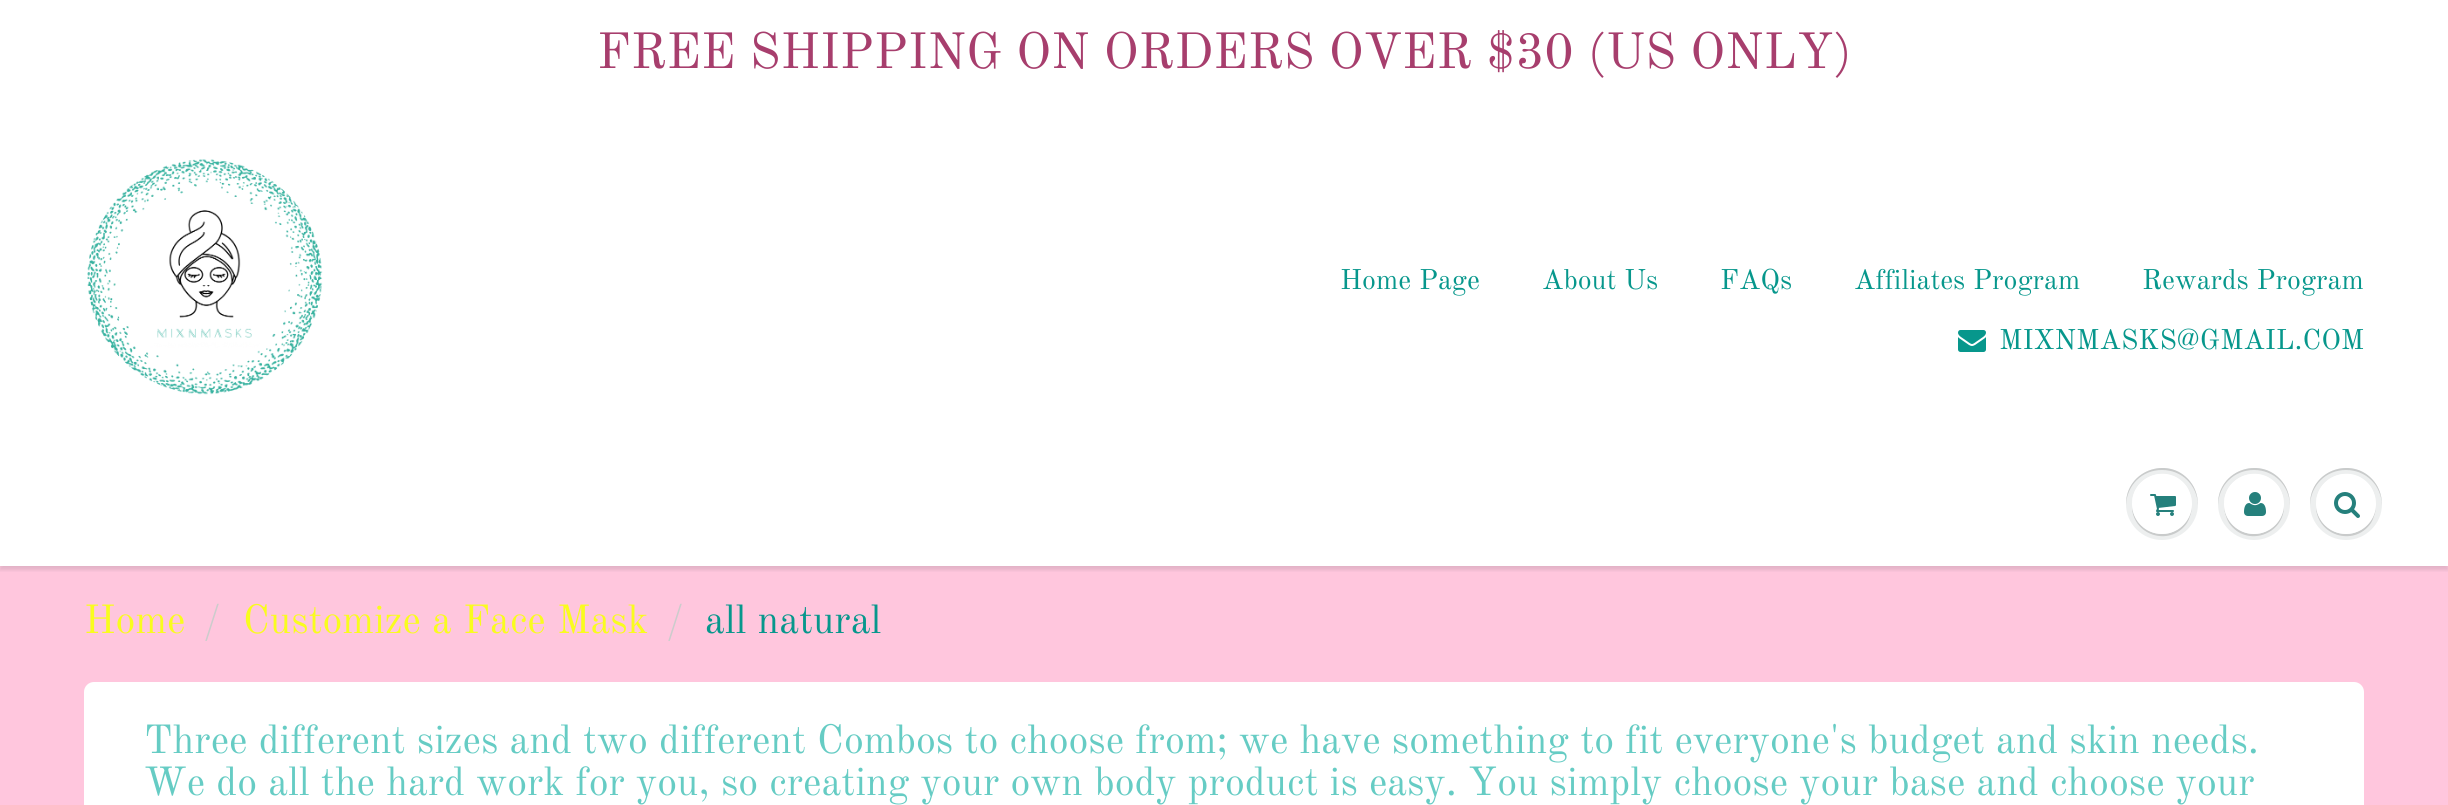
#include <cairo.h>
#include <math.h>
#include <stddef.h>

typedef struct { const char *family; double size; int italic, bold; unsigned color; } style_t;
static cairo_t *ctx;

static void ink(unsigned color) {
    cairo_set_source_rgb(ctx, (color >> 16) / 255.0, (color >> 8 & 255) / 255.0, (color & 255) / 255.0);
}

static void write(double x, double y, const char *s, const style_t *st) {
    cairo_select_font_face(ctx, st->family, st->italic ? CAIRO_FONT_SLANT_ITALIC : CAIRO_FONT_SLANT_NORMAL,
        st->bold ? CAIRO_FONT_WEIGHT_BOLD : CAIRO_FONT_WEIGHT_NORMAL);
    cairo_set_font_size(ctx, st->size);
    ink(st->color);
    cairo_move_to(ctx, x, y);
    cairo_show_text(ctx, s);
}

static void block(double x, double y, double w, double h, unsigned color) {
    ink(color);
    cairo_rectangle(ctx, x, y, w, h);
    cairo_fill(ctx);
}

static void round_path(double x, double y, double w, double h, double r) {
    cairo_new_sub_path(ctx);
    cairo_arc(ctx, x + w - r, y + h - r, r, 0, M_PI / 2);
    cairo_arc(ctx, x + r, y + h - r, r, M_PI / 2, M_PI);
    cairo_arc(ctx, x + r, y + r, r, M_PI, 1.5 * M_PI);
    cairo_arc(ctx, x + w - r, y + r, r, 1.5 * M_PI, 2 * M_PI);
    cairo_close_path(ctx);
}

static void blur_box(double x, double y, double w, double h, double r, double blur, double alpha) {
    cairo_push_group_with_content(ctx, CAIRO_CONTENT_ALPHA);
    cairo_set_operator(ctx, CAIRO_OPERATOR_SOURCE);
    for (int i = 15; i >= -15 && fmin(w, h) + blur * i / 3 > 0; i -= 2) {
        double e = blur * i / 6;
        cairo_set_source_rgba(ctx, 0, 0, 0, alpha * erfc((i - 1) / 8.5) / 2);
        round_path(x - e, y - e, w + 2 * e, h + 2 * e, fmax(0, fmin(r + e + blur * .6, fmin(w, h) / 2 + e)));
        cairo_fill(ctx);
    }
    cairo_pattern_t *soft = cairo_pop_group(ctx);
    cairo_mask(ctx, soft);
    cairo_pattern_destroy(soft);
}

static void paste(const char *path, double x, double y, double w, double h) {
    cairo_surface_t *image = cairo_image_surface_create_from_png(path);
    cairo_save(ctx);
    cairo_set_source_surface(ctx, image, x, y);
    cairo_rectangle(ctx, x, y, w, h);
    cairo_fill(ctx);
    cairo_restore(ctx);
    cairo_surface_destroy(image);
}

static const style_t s1 = {"Old Standard TT", 50, 0, 0, 0xa73e6d};
static const style_t s2 = {"Old Standard TT", 28, 0, 0, 0x07978c};
static const style_t s3 = {"Old Standard TT", 40, 0, 0, 0xf9fc1e};
static const style_t s4 = {"Old Standard TT", 40, 0, 0, 0xcccccc};
static const style_t s5 = {"Old Standard TT", 40, 0, 0, 0x07978c};
static const style_t s6 = {"Old Standard TT", 40, 0, 0, 0x66ccc4};

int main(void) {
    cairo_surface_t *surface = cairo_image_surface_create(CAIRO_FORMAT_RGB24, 2448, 805);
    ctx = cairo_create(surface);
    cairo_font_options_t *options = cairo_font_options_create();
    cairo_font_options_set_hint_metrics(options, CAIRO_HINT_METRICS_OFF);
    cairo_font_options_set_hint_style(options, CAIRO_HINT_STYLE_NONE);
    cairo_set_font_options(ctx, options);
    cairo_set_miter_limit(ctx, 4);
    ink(0xffffff);
    cairo_paint(ctx);
    write(597, 68, "FREE SHIPPING ON ORDERS OVER $30 (US ONLY)", &s1);
    paste("pic1.png", 87, 159, 236, 236);
    write(1340, 289, "Home Page", &s2);
    write(1542, 289, "About Us", &s2);
    write(1720, 289, "FAQs", &s2);
    write(1854, 289, "Affiliates Program", &s2);
    write(2142, 289, "Rewards Program", &s2);
    paste("pic2.png", 1958, 330, 28, 22);
    write(1999, 349, "MIXNMASKS@GMAIL.COM", &s2);
    block(0, 566, 2448, 239, 0xffc6dd);
    cairo_save(ctx);
    cairo_rectangle(ctx, 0, 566, 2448, 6);
    cairo_clip(ctx);
    ink(0x0b191c);
    blur_box(0, 444, 2448, 126, 0, 2, 0.12);
    cairo_restore(ctx);
    ink(0xedefef);
    cairo_arc(ctx, 2162, 504, 36, 0, 2 * M_PI);
    cairo_fill(ctx);
    ink(0xc9cbcb);
    cairo_new_path(ctx);
    cairo_move_to(ctx, 2192, 505);
    cairo_curve_to(ctx, 2191, 521, 2178, 534, 2162, 534);
    cairo_curve_to(ctx, 2146, 534, 2133, 521, 2132, 505);
    cairo_curve_to(ctx, 2131, 535, 2170, 548, 2187, 523);
    cairo_curve_to(ctx, 2190, 518, 2192, 511, 2192, 505);
    cairo_close_path(ctx);
    cairo_fill(ctx);
    cairo_new_path(ctx);
    cairo_move_to(ctx, 2162, 470);
    cairo_curve_to(ctx, 2182, 470, 2197, 485, 2198, 505);
    cairo_curve_to(ctx, 2198, 498, 2196, 490, 2192, 484);
    cairo_curve_to(ctx, 2172, 454, 2125, 469, 2126, 505);
    cairo_curve_to(ctx, 2127, 485, 2142, 470, 2162, 470);
    cairo_close_path(ctx);
    cairo_fill(ctx);
    ink(0xffffff);
    cairo_arc(ctx, 2162, 504, 30, 0, 2 * M_PI);
    cairo_fill(ctx);
    cairo_new_path(ctx);
    cairo_move_to(ctx, 2162, 476);
    cairo_curve_to(ctx, 2179, 476, 2191, 488, 2192, 505);
    cairo_curve_to(ctx, 2192, 499, 2190, 492, 2187, 487);
    cairo_curve_to(ctx, 2170, 462, 2131, 475, 2132, 505);
    cairo_curve_to(ctx, 2133, 488, 2145, 476, 2162, 476);
    cairo_close_path(ctx);
    cairo_fill(ctx);
    paste("pic3.png", 2150, 494, 26, 22);
    ink(0xedefef);
    cairo_arc(ctx, 2254, 504, 36, 0, 2 * M_PI);
    cairo_fill(ctx);
    ink(0xc9cbcb);
    cairo_new_path(ctx);
    cairo_move_to(ctx, 2284, 505);
    cairo_curve_to(ctx, 2283, 521, 2270, 534, 2254, 534);
    cairo_curve_to(ctx, 2238, 534, 2225, 521, 2224, 505);
    cairo_curve_to(ctx, 2224, 511, 2226, 518, 2229, 523);
    cairo_curve_to(ctx, 2246, 548, 2285, 535, 2284, 505);
    cairo_close_path(ctx);
    cairo_fill(ctx);
    cairo_new_path(ctx);
    cairo_move_to(ctx, 2254, 470);
    cairo_curve_to(ctx, 2274, 470, 2289, 485, 2290, 505);
    cairo_curve_to(ctx, 2290, 498, 2288, 490, 2284, 484);
    cairo_curve_to(ctx, 2264, 454, 2217, 469, 2218, 505);
    cairo_curve_to(ctx, 2219, 485, 2234, 470, 2254, 470);
    cairo_close_path(ctx);
    cairo_fill(ctx);
    ink(0xffffff);
    cairo_arc(ctx, 2254, 504, 30, 0, 2 * M_PI);
    cairo_fill(ctx);
    cairo_new_path(ctx);
    cairo_move_to(ctx, 2254, 476);
    cairo_curve_to(ctx, 2271, 476, 2283, 488, 2284, 505);
    cairo_curve_to(ctx, 2284, 499, 2282, 492, 2279, 487);
    cairo_curve_to(ctx, 2262, 462, 2223, 475, 2224, 505);
    cairo_curve_to(ctx, 2225, 488, 2237, 476, 2254, 476);
    cairo_close_path(ctx);
    cairo_fill(ctx);
    paste("pic4.png", 2244, 492, 22, 24);
    ink(0xedefef);
    cairo_arc(ctx, 2346, 504, 36, 0, 2 * M_PI);
    cairo_fill(ctx);
    ink(0xc9cbcb);
    cairo_new_path(ctx);
    cairo_move_to(ctx, 2376, 505);
    cairo_curve_to(ctx, 2375, 521, 2362, 534, 2346, 534);
    cairo_curve_to(ctx, 2330, 534, 2317, 521, 2316, 505);
    cairo_curve_to(ctx, 2315, 535, 2354, 548, 2371, 523);
    cairo_curve_to(ctx, 2374, 518, 2376, 511, 2376, 505);
    cairo_close_path(ctx);
    cairo_fill(ctx);
    cairo_new_path(ctx);
    cairo_move_to(ctx, 2346, 470);
    cairo_curve_to(ctx, 2366, 470, 2381, 485, 2382, 505);
    cairo_curve_to(ctx, 2382, 498, 2380, 490, 2376, 484);
    cairo_curve_to(ctx, 2356, 454, 2309, 469, 2310, 505);
    cairo_curve_to(ctx, 2311, 485, 2326, 470, 2346, 470);
    cairo_close_path(ctx);
    cairo_fill(ctx);
    ink(0xffffff);
    cairo_arc(ctx, 2346, 504, 30, 0, 2 * M_PI);
    cairo_fill(ctx);
    cairo_new_path(ctx);
    cairo_move_to(ctx, 2346, 476);
    cairo_curve_to(ctx, 2363, 476, 2375, 488, 2376, 505);
    cairo_curve_to(ctx, 2376, 499, 2374, 492, 2371, 487);
    cairo_curve_to(ctx, 2354, 462, 2315, 475, 2316, 505);
    cairo_curve_to(ctx, 2317, 488, 2329, 476, 2346, 476);
    cairo_close_path(ctx);
    cairo_fill(ctx);
    paste("pic5.png", 2334, 492, 26, 26);
    write(84, 633, "Home", &s3);
    write(203, 633, "/", &s4);
    write(243, 633, "Customize a Face Mask", &s3);
    write(666, 633, "/", &s4);
    write(705, 633, "all natural", &s5);
    round_path(89, 687, 2270, 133, 5);
    ink(0xffffff);
    cairo_set_line_width(ctx, 10);
    cairo_stroke(ctx);
    block(94, 692, 2260, 113, 0xffffff);
    write(144, 753, "Three different sizes and two different Combos to choose from; we have something to fit everyone's budget and skin needs.", &s6);
    write(144, 795, "We do all the hard work for you, so creating your own body product is easy. You simply choose your base and choose your", &s6);
    cairo_surface_write_to_png(surface, "screenshot.png");
    cairo_font_options_destroy(options);
    cairo_destroy(ctx);
    cairo_surface_destroy(surface);
    return 0;
}
